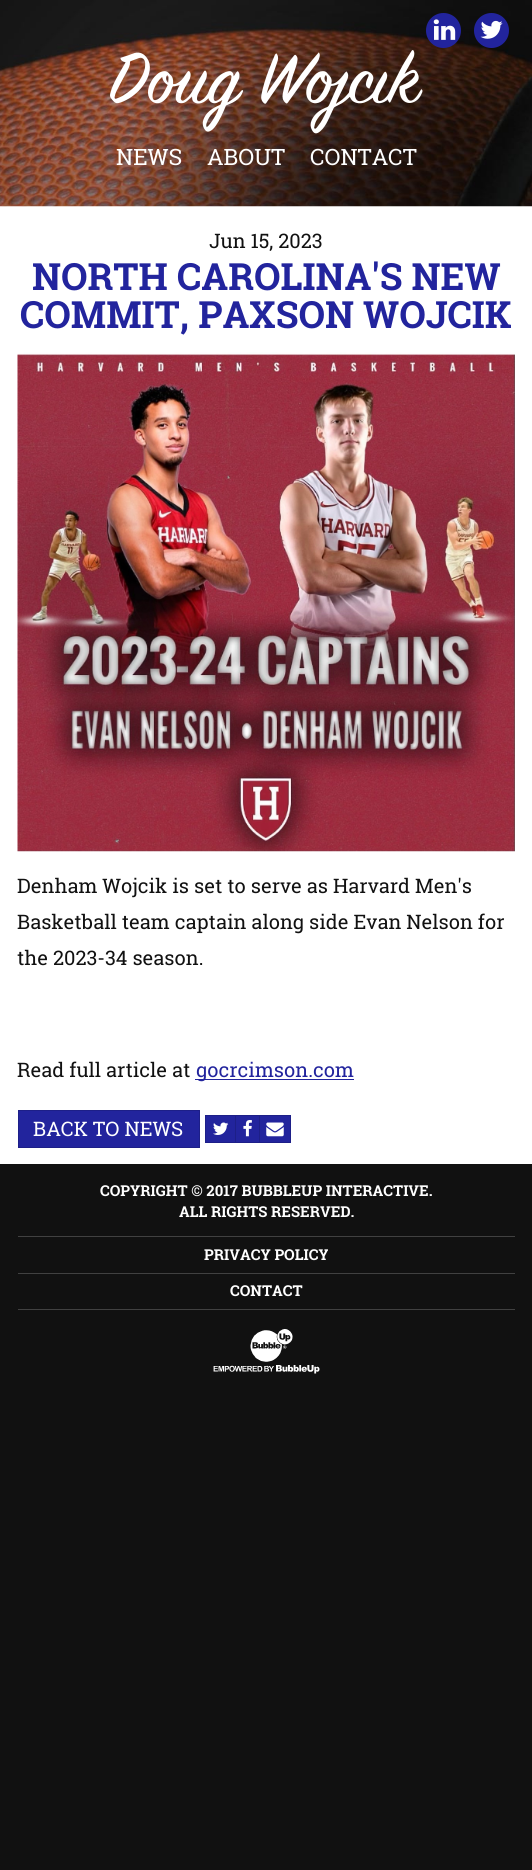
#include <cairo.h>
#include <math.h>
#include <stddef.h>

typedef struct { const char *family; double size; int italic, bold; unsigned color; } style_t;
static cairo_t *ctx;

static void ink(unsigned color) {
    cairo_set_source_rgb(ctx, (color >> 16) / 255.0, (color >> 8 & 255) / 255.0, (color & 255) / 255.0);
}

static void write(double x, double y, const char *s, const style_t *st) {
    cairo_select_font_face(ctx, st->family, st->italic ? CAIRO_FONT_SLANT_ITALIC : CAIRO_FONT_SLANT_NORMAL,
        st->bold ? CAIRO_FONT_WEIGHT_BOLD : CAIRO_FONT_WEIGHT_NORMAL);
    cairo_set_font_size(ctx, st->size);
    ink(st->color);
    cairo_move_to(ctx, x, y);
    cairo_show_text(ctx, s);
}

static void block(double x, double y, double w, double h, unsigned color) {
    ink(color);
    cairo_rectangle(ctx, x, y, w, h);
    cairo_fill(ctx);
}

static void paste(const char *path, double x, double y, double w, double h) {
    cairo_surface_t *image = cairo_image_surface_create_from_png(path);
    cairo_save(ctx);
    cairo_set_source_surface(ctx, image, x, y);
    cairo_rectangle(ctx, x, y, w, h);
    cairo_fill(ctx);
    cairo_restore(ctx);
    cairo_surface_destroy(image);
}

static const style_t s1 = {"Roboto Slab", 22.5, 0, 0, 0xffffff};
static const style_t s2 = {"Roboto Slab", 20, 0, 0, 0x111111};
static const style_t s3 = {"Roboto Slab", 37.5, 0, 1, 0x22249d};
static const style_t s4 = {"Roboto Slab", 20, 0, 0, 0x22249d};
static const style_t s5 = {"Roboto Slab", 20, 0, 0, 0xffffff};
static const style_t s6 = {"Roboto Slab", 15, 0, 1, 0xffffff};

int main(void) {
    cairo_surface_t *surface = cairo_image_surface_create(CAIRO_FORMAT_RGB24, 532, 1870);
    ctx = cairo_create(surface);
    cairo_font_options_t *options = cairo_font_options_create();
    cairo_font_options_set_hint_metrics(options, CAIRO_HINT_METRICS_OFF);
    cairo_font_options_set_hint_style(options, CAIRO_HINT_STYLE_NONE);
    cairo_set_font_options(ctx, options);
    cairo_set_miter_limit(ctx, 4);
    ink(0x111111);
    cairo_paint(ctx);
    block(0, 206, 532, 958, 0xffffff);
    paste("pic1.png", 0, 0, 532, 207);
    paste("pic2.png", 110, 50, 313, 84);
    ink(0x22249d);
    cairo_arc(ctx, 443.5, 30.5, 17.5, 0, 2 * M_PI);
    cairo_fill(ctx);
    paste("pic3.png", 433, 19, 23, 21);
    cairo_arc(ctx, 491.5, 30.5, 17.5, 0, 2 * M_PI);
    cairo_fill(ctx);
    paste("pic4.png", 480, 20, 23, 19);
    write(116, 165, "NEWS", &s1);
    write(207, 165, "ABOUT", &s1);
    write(310, 165, "CONTACT", &s1);
    write(209, 248, "Jun 15, 2023", &s2);
    write(32, 290, "NORTH CAROLINA'S NEW", &s3);
    write(20, 328, "COMMIT, PAXSON WOJCIK", &s3);
    paste("pic5.png", 17, 352, 498, 500);
    write(17, 893, "Denham Wojcik is set to serve as Harvard Men's", &s2);
    write(17, 929, "Basketball team captain along side Evan Nelson for", &s2);
    write(17, 965, "the 2023-34 season.", &s2);
    write(17, 1077, "Read full article at", &s2);
    block(195, 1079, 159, 1, 0x22249d);
    write(196, 1077, "gocrcimson.com", &s4);
    cairo_rectangle(ctx, 18.5, 1110.5, 181, 37);
    cairo_fill_preserve(ctx);
    ink(0x1d1f88);
    cairo_set_line_width(ctx, 1);
    cairo_stroke(ctx);
    write(33, 1136, "BACK TO NEWS", &s5);
    ink(0x22249d);
    cairo_rectangle(ctx, 205.5, 1115.5, 30, 27);
    cairo_fill_preserve(ctx);
    ink(0x1d1f88);
    cairo_stroke(ctx);
    paste("pic6.png", 213, 1122, 16, 13);
    ink(0x22249d);
    cairo_rectangle(ctx, 235.5, 1115.5, 24, 27);
    cairo_fill_preserve(ctx);
    ink(0x1d1f88);
    cairo_stroke(ctx);
    paste("pic7.png", 243, 1120, 9, 17);
    ink(0x22249d);
    cairo_rectangle(ctx, 259.5, 1115.5, 31, 27);
    cairo_fill_preserve(ctx);
    ink(0x1d1f88);
    cairo_stroke(ctx);
    paste("pic8.png", 266, 1122, 18, 15);
    write(100, 1196, "COPYRIGHT © 2017 BUBBLEUP INTERACTIVE.", &s6);
    write(179, 1217, "ALL RIGHTS RESERVED.", &s6);
    block(18, 1236, 497, 1, 0x414141);
    block(18, 1273, 497, 1, 0x414141);
    write(204, 1260, "PRIVACY POLICY", &s6);
    block(18, 1309, 497, 1, 0x414141);
    write(230, 1296, "CONTACT", &s6);
    paste("pic9.png", 213, 1329, 107, 45);
    cairo_surface_write_to_png(surface, "screenshot.png");
    cairo_font_options_destroy(options);
    cairo_destroy(ctx);
    cairo_surface_destroy(surface);
    return 0;
}
